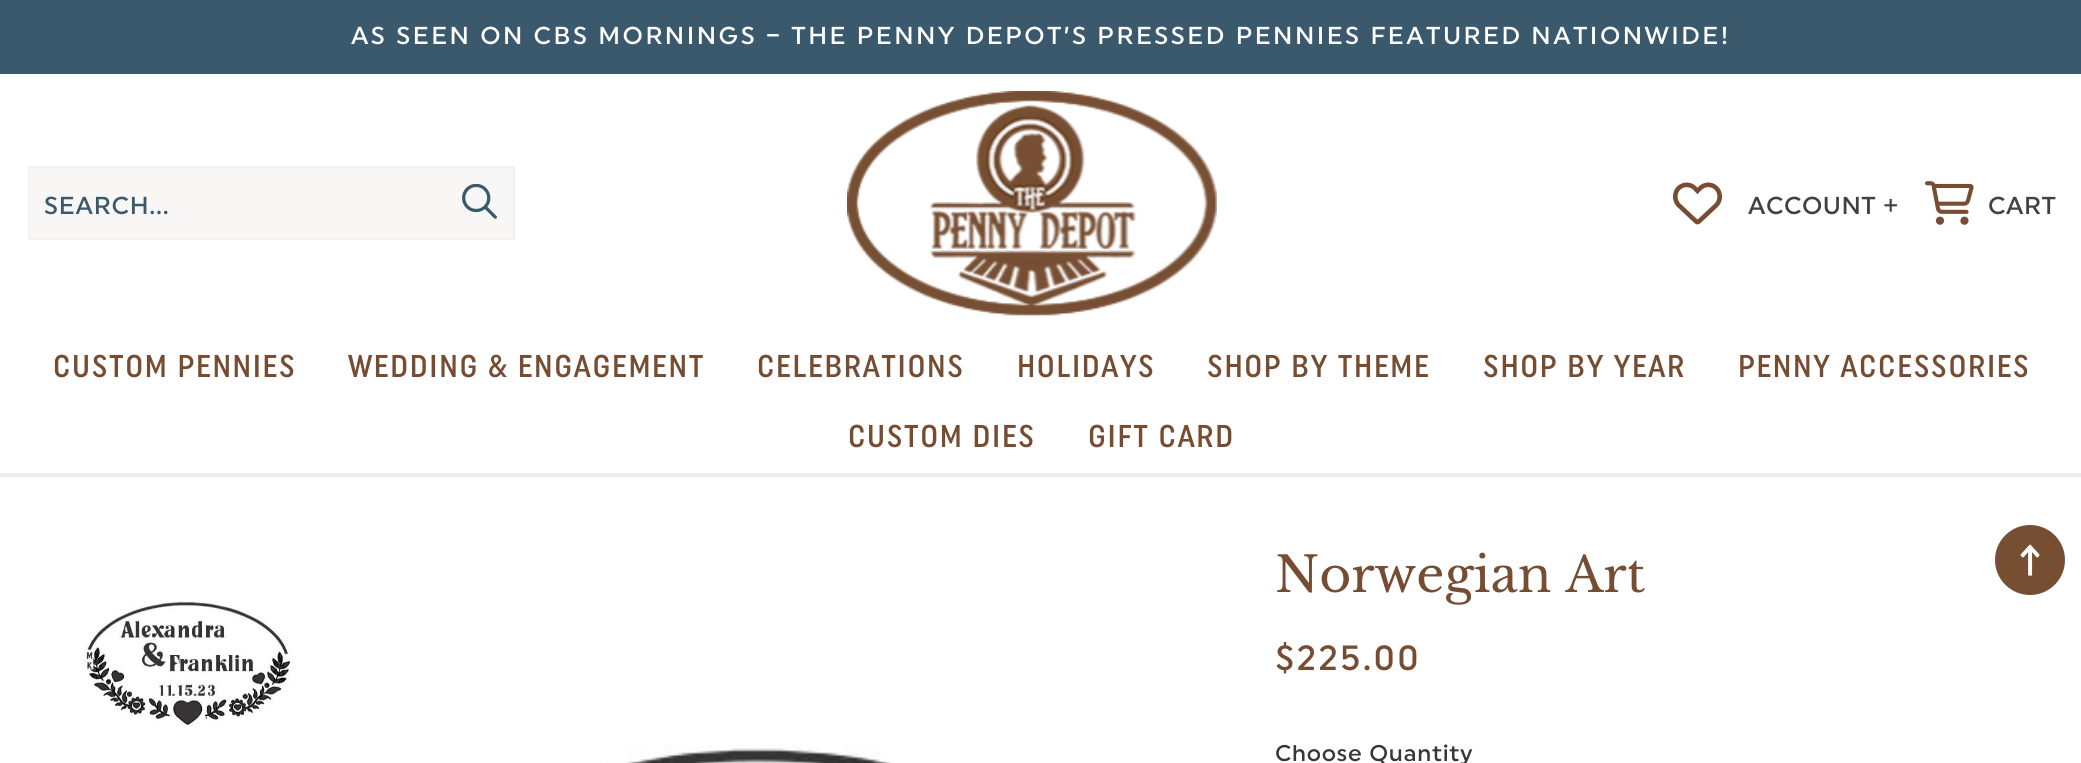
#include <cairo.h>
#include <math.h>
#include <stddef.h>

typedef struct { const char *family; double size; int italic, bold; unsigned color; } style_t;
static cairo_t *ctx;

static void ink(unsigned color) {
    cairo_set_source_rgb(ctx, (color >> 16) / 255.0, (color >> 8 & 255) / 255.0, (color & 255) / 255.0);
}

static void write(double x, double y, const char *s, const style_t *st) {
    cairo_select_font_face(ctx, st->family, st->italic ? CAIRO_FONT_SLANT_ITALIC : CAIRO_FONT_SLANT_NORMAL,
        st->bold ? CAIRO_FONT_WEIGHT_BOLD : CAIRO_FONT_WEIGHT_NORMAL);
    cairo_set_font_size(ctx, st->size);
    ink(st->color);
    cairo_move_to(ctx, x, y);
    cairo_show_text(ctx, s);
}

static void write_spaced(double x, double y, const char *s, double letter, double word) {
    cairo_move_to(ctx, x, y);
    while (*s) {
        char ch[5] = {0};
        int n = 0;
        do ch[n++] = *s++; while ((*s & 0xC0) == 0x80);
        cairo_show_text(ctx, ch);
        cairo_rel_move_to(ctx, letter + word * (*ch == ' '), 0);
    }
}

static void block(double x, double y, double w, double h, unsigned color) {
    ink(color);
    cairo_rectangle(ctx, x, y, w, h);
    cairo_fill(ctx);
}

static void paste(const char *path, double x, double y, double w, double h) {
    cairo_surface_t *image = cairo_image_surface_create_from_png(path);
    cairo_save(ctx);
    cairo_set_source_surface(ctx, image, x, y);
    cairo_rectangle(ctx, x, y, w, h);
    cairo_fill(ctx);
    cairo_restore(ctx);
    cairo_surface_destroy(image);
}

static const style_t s1 = {"Libre Baskerville", 49, 0, 0, 0x764d32};

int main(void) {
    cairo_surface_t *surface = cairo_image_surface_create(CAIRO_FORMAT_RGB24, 2081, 763);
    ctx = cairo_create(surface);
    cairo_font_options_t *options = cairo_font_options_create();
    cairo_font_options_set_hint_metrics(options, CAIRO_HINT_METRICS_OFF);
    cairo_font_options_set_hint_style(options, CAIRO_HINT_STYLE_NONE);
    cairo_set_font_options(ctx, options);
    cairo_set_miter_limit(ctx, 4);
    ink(0xffffff);
    cairo_paint(ctx);
    block(0, 0, 2081, 74, 0x3a596d);
    cairo_select_font_face(ctx, "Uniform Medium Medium", CAIRO_FONT_SLANT_NORMAL, CAIRO_FONT_WEIGHT_NORMAL);
    cairo_set_font_size(ctx, 24.5);
    ink(0xffffff);
    write_spaced(351, 44, "AS SEEN ON CBS MORNINGS – THE PENNY DEPOT’S PRESSED PENNIES FEATURED NATIONWIDE!", 2.45, 0);
    ink(0xf8f7f6);
    cairo_rectangle(ctx, 29, 167, 485, 72);
    cairo_fill_preserve(ctx);
    ink(0xf1f1f1);
    cairo_stroke(ctx);
    ink(0x3a596d);
    write_spaced(44, 214, "SEARCH...", 0.75, 0);
    paste("pic1.png", 462, 184, 35, 35);
    paste("pic2.png", 847, 91, 370, 225);
    paste("pic3.png", 1673, 182, 49, 43);
    ink(0x414142);
    write_spaced(1748, 214, "ACCOUNT +", 0.5, 0);
    paste("pic4.png", 1925, 181, 49, 44);
    write_spaced(1988, 214, "CART", 0.5, 0);
    cairo_select_font_face(ctx, "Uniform", CAIRO_FONT_SLANT_NORMAL, CAIRO_FONT_WEIGHT_NORMAL);
    cairo_set_font_size(ctx, 31.5);
    ink(0x764d32);
    write_spaced(53, 377, "CUSTOM PENNIES", 1.6, 0);
    write_spaced(348, 377, "WEDDING & ENGAGEMENT", 1.6, 0);
    write_spaced(757, 377, "CELEBRATIONS", 1.6, 0);
    write_spaced(1017, 377, "HOLIDAYS", 1.6, 0);
    write_spaced(1207, 377, "SHOP BY THEME", 1.6, 0);
    write_spaced(1483, 377, "SHOP BY YEAR", 1.6, 0);
    write_spaced(1738, 377, "PENNY ACCESSORIES", 1.6, 0);
    write_spaced(848, 447, "CUSTOM DIES", 1.6, 0);
    write_spaced(1088, 447, "GIFT CARD", 1.6, 0);
    block(0, 473, 2081, 4, 0xeeebe9);
    paste("pic5.png", 84, 601, 206, 125);
    paste("pic6.png", 606, 745, 286, 18);
    write(1275, 592, "Norwegian Art", &s1);
    cairo_select_font_face(ctx, "Uniform Medium Medium", CAIRO_FONT_SLANT_NORMAL, CAIRO_FONT_WEIGHT_NORMAL);
    cairo_set_font_size(ctx, 35);
    write_spaced(1275, 670, "$225.00", 2.25, 0);
    cairo_set_font_size(ctx, 22.75);
    ink(0x363636);
    write_spaced(1275, 761, "Choose Quantity", 0.75, 0);
    ink(0x764e32);
    cairo_new_path(ctx);
    cairo_arc(ctx, 2030, 560, 35, 0, 2 * M_PI);
    cairo_fill(ctx);
    paste("pic7.png", 2020, 544, 20, 32);
    cairo_surface_write_to_png(surface, "screenshot.png");
    cairo_font_options_destroy(options);
    cairo_destroy(ctx);
    cairo_surface_destroy(surface);
    return 0;
}
